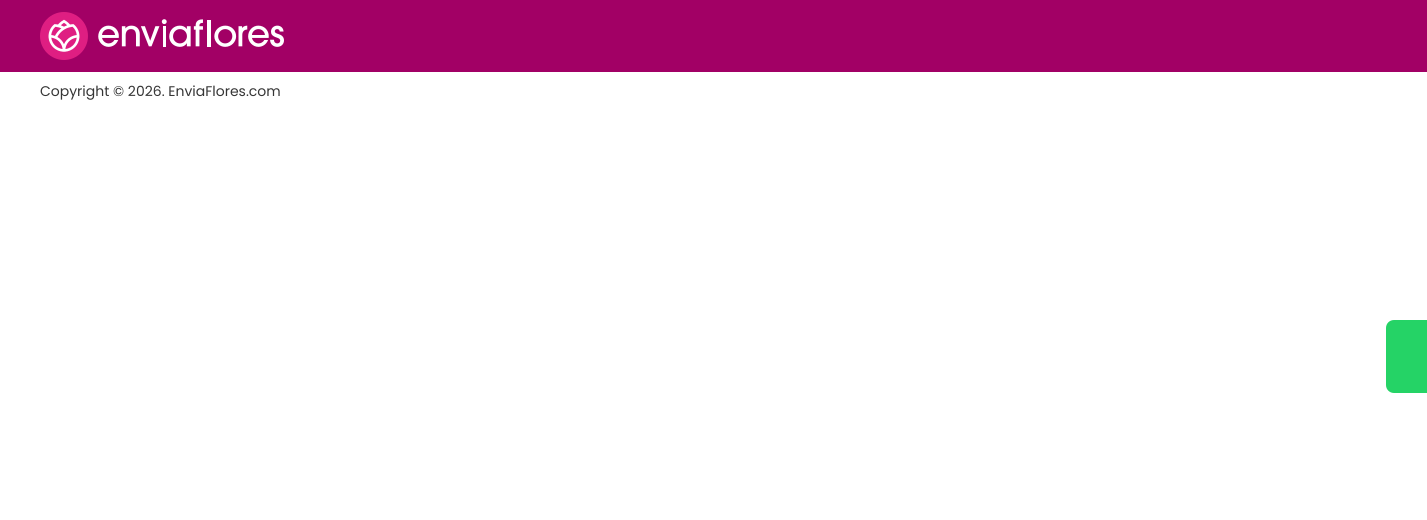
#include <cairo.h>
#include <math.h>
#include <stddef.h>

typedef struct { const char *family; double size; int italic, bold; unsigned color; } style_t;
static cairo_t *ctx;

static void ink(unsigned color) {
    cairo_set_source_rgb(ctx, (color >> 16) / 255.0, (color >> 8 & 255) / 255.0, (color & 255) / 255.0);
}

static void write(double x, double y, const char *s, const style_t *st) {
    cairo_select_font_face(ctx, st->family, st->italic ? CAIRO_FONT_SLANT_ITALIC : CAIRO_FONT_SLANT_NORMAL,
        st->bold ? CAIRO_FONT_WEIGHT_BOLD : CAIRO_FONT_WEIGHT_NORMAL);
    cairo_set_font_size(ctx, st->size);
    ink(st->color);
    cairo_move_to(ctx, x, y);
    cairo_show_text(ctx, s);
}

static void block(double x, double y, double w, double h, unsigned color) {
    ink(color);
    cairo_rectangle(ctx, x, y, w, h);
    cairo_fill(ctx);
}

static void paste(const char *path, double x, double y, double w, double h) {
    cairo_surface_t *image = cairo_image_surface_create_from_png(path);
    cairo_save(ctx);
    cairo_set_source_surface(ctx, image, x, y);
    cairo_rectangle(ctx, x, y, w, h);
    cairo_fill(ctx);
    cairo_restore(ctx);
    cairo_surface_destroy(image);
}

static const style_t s1 = {"Poppins", 14, 0, 0, 0x353535};

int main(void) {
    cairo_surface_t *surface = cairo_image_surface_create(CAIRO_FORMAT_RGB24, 1427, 520);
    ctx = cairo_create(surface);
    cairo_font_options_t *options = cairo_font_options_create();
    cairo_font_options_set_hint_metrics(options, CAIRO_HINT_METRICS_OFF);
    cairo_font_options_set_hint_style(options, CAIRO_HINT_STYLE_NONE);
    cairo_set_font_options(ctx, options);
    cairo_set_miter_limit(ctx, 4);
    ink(0xffffff);
    cairo_paint(ctx);
    block(0, 0, 1427, 72, 0xa20065);
    paste("pic1.png", 40, 12, 244, 48);
    write(40, 96, "Copyright © 2026. EnviaFlores.com", &s1);
    ink(0x25d366);
    cairo_new_path(ctx);
    cairo_move_to(ctx, 1394, 320);
    cairo_line_to(ctx, 1427, 320);
    cairo_line_to(ctx, 1427, 393);
    cairo_line_to(ctx, 1394, 393);
    cairo_curve_to(ctx, 1389.5, 393, 1386, 389.5, 1386, 385);
    cairo_line_to(ctx, 1386, 328);
    cairo_curve_to(ctx, 1386, 323.5, 1389.5, 320, 1394, 320);
    cairo_close_path(ctx);
    cairo_fill(ctx);
    cairo_surface_write_to_png(surface, "screenshot.png");
    cairo_font_options_destroy(options);
    cairo_destroy(ctx);
    cairo_surface_destroy(surface);
    return 0;
}
